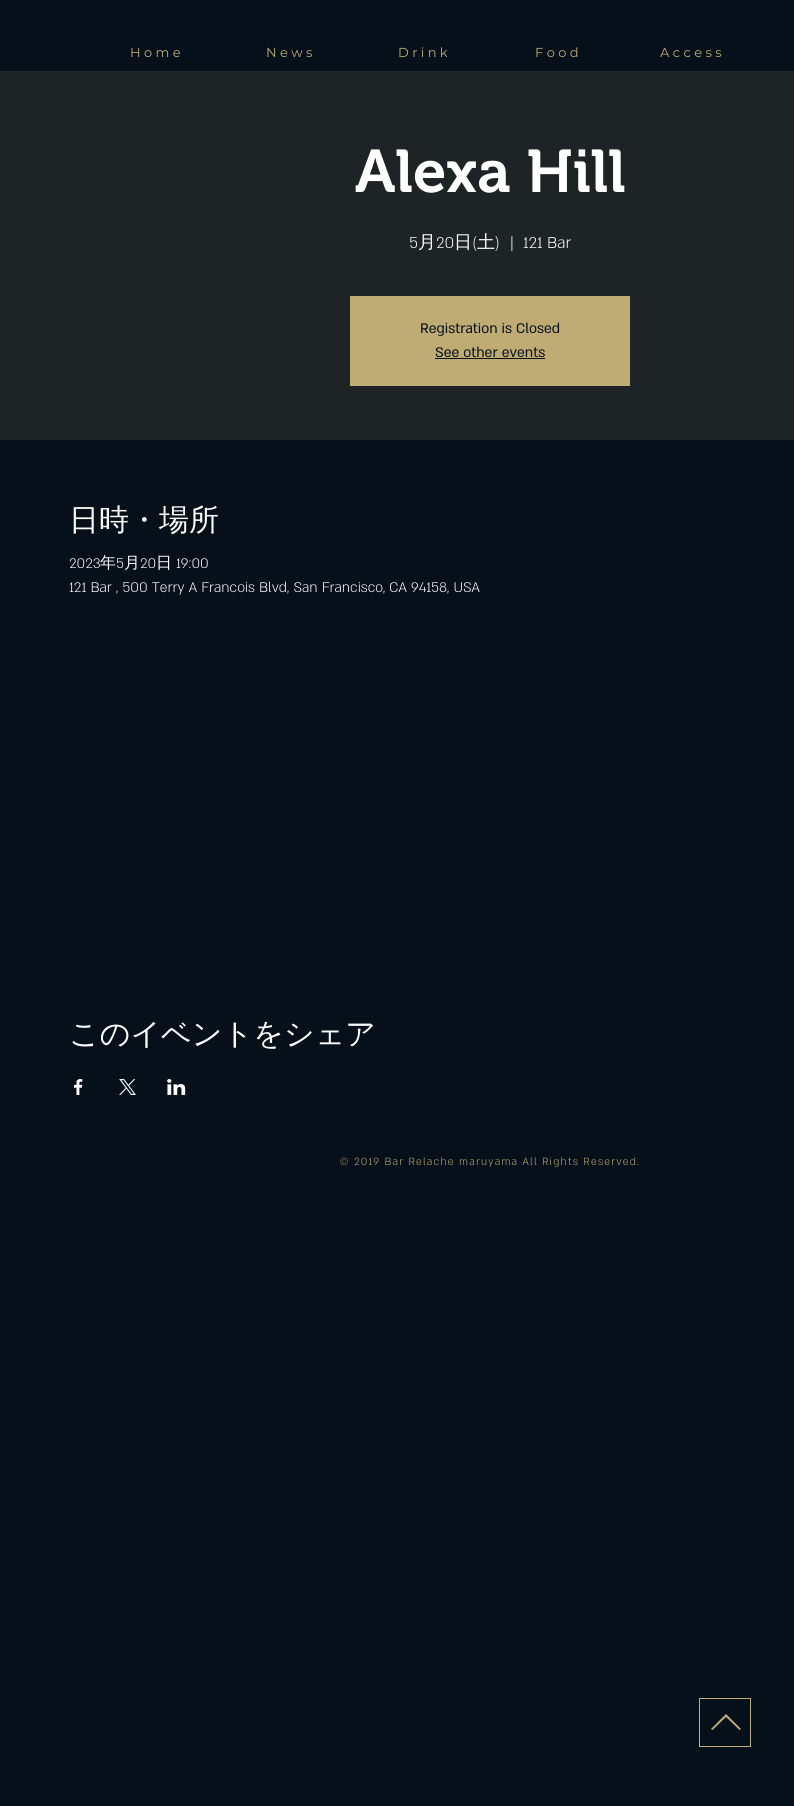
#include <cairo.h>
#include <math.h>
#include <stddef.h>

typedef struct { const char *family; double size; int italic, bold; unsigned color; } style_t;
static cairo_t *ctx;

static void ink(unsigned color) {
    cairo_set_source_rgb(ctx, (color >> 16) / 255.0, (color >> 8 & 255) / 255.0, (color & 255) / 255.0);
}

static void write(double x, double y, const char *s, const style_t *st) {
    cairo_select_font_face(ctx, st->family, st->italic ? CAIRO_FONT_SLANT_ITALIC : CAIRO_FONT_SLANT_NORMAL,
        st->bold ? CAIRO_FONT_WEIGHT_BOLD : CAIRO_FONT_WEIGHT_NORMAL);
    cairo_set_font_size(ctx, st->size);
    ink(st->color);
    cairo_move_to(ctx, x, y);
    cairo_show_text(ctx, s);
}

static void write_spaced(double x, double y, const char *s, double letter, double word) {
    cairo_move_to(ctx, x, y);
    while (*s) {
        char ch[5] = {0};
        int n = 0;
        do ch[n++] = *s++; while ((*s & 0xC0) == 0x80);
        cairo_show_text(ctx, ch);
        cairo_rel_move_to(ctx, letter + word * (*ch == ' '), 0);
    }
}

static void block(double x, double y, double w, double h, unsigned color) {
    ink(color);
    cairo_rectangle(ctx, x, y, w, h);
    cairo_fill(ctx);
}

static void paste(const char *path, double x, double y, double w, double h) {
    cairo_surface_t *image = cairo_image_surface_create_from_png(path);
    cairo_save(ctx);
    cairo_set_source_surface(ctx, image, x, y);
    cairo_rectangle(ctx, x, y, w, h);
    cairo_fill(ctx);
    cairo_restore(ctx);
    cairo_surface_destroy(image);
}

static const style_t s1 = {"Montserrat", 13, 0, 0, 0xbeac74};
static const style_t s2 = {"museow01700 SemiBold", 60, 0, 0, 0xffffff};
static const style_t s3 = {"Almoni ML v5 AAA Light", 18, 0, 0, 0xffffff};
static const style_t s4 = {"WenQuanYi Zen Hei Medium", 18, 0, 0, 0xffffff};
static const style_t s5 = {"Almoni ML v5 AAA", 16, 0, 0, 0x06101b};
static const style_t s6 = {"WenQuanYi Zen Hei Medium", 30, 0, 0, 0xffffff};
static const style_t s7 = {"Almoni ML v5 AAA Light", 16, 0, 0, 0xffffff};
static const style_t s8 = {"WenQuanYi Zen Hei Medium", 16, 0, 0, 0xffffff};

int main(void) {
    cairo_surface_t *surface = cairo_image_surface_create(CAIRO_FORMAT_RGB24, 794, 1806);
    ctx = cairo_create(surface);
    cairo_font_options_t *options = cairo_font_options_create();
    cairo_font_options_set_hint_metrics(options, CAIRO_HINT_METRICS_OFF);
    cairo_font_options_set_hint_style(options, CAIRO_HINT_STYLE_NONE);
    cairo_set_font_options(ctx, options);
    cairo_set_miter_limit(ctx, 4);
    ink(0x06101b);
    cairo_paint(ctx);
    write(130, 57, "H o m e", &s1);
    write(266, 57, "N e w s", &s1);
    write(398, 57, "D r i n k", &s1);
    write(535, 57, "F o o d", &s1);
    write(660, 57, "A c c e s s", &s1);
    block(0, 71, 794, 369, 0x1e2425);
    write(355, 192, "Alexa Hill", &s2);
    write(409, 248, "5", &s3);
    write(418, 248, "月", &s4);
    write(436, 248, "20", &s3);
    write(454, 248, "日", &s4);
    write(472, 248, "(", &s3);
    write(477, 248, "土", &s4);
    write(495, 248, ")", &s3);
    write(510, 248, "|", &s3);
    write(523, 248, "121 Bar", &s3);
    block(350, 296, 280, 90, 0xbeac74);
    write(420, 333, "Registration is Closed", &s5);
    write(435, 357, "See other events", &s5);
    block(435, 358, 110, 1, 0x06101b);
    write(69, 530, "日時・場所", &s6);
    write(69, 568, "2023", &s7);
    write(100, 568, "年", &s8);
    write(116, 568, "5", &s7);
    write(124, 568, "月", &s8);
    write(140, 568, "20", &s7);
    write(156, 568, "日", &s8);
    write(176, 568, "19:00", &s7);
    write(69, 592, "121 Bar , 500 Terry A Francois Blvd, San Francisco, CA 94158, USA", &s7);
    write(69, 1044, "このイベントをシェア", &s6);
    paste("pic1.png", 74, 1079, 9, 16);
    paste("pic2.png", 119, 1079, 17, 16);
    paste("pic3.png", 167, 1079, 19, 16);
    cairo_select_font_face(ctx, "Almoni ML v5 AAA Light", CAIRO_FONT_SLANT_NORMAL, CAIRO_FONT_WEIGHT_NORMAL);
    cairo_set_font_size(ctx, 12);
    ink(0xbeac74);
    write_spaced(340, 1165, "© 2019 Bar Relache maruyama All Rights Reserved.", 1.2, 0);
    cairo_rectangle(ctx, 699.5, 1698.5, 51, 48);
    cairo_set_line_width(ctx, 1);
    cairo_stroke(ctx);
    cairo_new_path(ctx);
    cairo_move_to(ctx, 711, 1729);
    cairo_line_to(ctx, 712.5, 1730);
    cairo_line_to(ctx, 726, 1717);
    cairo_line_to(ctx, 739.5, 1730);
    cairo_line_to(ctx, 741, 1729);
    cairo_line_to(ctx, 726, 1714);
    cairo_close_path(ctx);
    cairo_fill(ctx);
    cairo_surface_write_to_png(surface, "screenshot.png");
    cairo_font_options_destroy(options);
    cairo_destroy(ctx);
    cairo_surface_destroy(surface);
    return 0;
}
